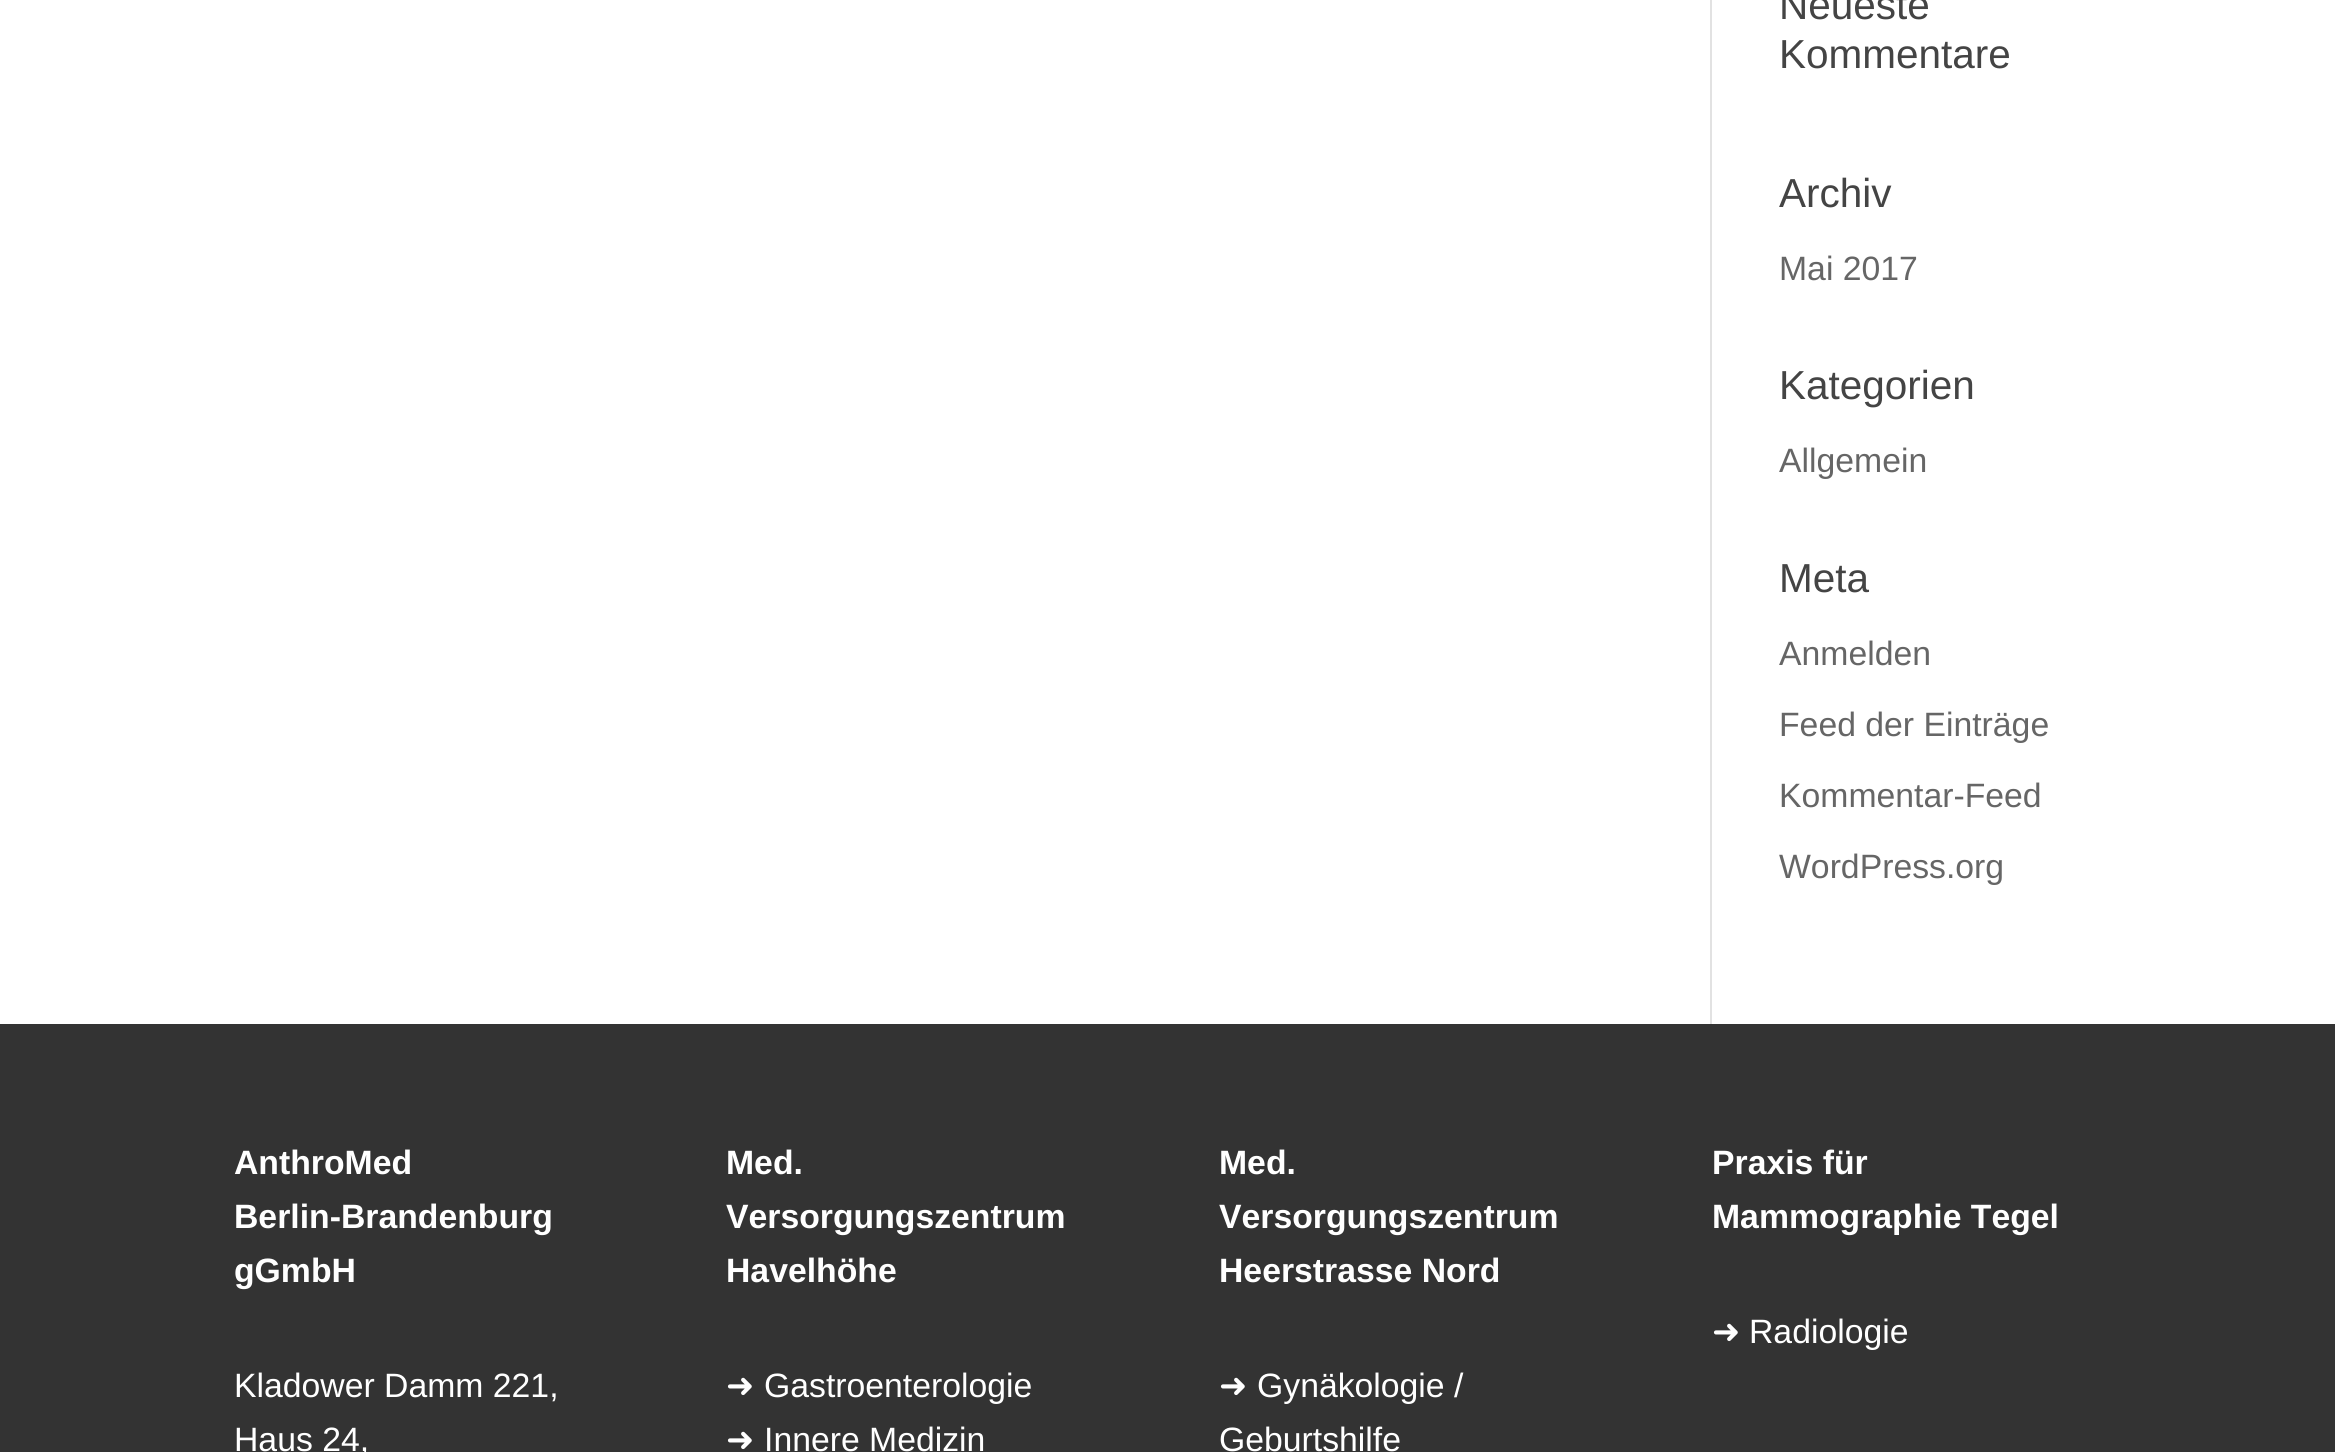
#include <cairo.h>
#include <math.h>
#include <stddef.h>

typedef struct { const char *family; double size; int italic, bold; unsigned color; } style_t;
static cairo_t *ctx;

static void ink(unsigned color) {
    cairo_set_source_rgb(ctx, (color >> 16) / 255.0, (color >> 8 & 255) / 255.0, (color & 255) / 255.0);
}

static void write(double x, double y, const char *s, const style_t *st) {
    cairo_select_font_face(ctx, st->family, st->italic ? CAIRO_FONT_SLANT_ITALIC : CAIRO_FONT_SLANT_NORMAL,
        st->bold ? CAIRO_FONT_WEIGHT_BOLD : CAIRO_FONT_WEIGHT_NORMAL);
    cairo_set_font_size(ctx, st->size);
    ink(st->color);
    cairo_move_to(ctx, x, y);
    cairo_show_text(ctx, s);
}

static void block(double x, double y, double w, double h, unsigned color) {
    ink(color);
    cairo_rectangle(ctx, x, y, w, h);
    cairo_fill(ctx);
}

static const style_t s1 = {"Liberation Sans", 40.5, 0, 0, 0x444444};
static const style_t s2 = {"Liberation Sans", 33.75, 0, 0, 0x666666};
static const style_t s3 = {"Liberation Sans", 33.75, 0, 1, 0xffffff};
static const style_t s4 = {"Liberation Sans", 33.75, 0, 0, 0xffffff};
static const style_t s5 = {"DejaVu Sans", 33.75, 0, 0, 0xffffff};

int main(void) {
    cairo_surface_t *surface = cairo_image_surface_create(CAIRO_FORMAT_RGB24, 2335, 1452);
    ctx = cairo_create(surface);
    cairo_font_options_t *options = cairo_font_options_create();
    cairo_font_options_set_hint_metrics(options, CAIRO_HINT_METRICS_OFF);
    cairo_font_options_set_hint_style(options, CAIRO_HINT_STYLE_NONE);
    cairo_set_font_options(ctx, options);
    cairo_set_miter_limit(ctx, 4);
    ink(0xffffff);
    cairo_paint(ctx);
    block(1710, 0, 2, 1024, 0xe2e2e2);
    write(1779, 19, "Neueste", &s1);
    write(1779, 68, "Kommentare", &s1);
    write(1779, 207, "Archiv", &s1);
    write(1779, 280, "Mai 2017", &s2);
    write(1779, 399, "Kategorien", &s1);
    write(1779, 472, "Allgemein", &s2);
    write(1779, 592, "Meta", &s1);
    write(1779, 665, "Anmelden", &s2);
    write(1779, 736, "Feed der Einträge", &s2);
    write(1779, 807, "Kommentar-Feed", &s2);
    write(1779, 878, "WordPress.org", &s2);
    block(0, 1024, 2335, 428, 0x333333);
    write(234, 1174, "AnthroMed", &s3);
    write(234, 1228, "Berlin-Brandenburg", &s3);
    write(234, 1282, "gGmbH", &s3);
    write(234, 1397, "Kladower Damm 221,", &s4);
    write(234, 1451, "Haus 24,", &s4);
    write(726, 1174, "Med.", &s3);
    write(726, 1228, "Versorgungszentrum", &s3);
    write(726, 1282, "Havelhöhe", &s3);
    write(726, 1397, "➜", &s5);
    write(764, 1397, "Gastroenterologie", &s4);
    write(726, 1451, "➜", &s5);
    write(764, 1451, "Innere Medizin", &s4);
    write(1219, 1174, "Med.", &s3);
    write(1219, 1228, "Versorgungszentrum", &s3);
    write(1219, 1282, "Heerstrasse Nord", &s3);
    write(1219, 1397, "➜", &s5);
    write(1257, 1397, "Gynäkologie /", &s4);
    write(1219, 1451, "Geburtshilfe", &s4);
    write(1712, 1174, "Praxis für", &s3);
    write(1712, 1228, "Mammographie Tegel", &s3);
    write(1712, 1343, "➜", &s5);
    write(1749, 1343, "Radiologie", &s4);
    cairo_surface_write_to_png(surface, "screenshot.png");
    cairo_font_options_destroy(options);
    cairo_destroy(ctx);
    cairo_surface_destroy(surface);
    return 0;
}
